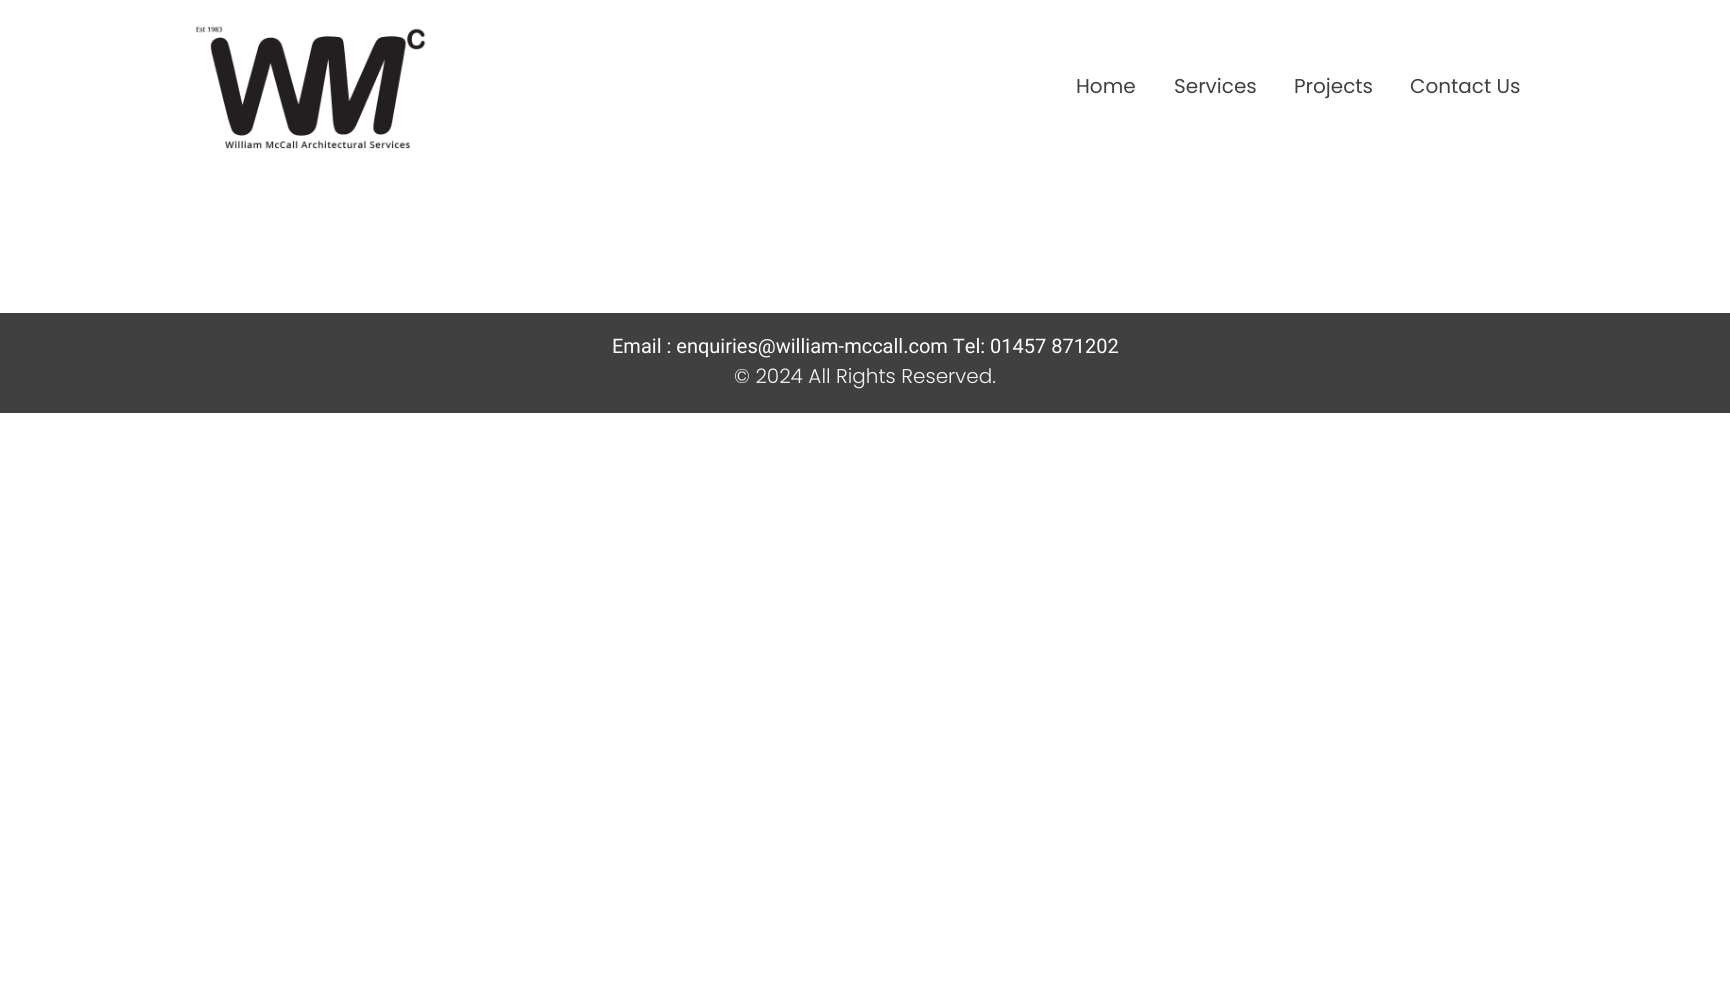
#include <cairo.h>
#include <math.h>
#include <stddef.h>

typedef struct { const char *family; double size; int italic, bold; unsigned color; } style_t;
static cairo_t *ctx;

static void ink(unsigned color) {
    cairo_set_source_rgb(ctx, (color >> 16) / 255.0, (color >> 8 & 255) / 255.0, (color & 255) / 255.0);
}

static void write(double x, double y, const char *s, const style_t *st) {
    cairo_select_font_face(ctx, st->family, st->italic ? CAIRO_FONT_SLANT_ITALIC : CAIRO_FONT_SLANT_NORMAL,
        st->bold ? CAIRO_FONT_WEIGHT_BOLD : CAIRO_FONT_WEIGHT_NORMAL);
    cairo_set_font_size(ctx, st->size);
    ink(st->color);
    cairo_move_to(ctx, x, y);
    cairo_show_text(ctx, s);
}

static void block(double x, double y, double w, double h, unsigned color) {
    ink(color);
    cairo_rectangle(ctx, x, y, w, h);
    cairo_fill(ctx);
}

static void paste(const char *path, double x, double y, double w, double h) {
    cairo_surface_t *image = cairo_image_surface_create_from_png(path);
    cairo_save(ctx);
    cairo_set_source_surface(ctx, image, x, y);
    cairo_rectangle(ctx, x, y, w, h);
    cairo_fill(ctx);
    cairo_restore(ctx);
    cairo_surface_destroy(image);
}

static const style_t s1 = {"Poppins", 20, 0, 0, 0x404040};
static const style_t s2 = {"Roboto", 20, 0, 0, 0xffffff};
static const style_t s3 = {"Poppins Light", 20, 0, 0, 0xf3f5f8};

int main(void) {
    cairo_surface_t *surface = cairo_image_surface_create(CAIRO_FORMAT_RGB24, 1730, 991);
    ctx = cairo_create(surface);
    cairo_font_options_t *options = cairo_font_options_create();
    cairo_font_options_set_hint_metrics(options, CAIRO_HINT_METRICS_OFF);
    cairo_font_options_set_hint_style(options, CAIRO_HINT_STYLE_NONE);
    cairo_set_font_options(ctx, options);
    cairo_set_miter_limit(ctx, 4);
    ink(0xffffff);
    cairo_paint(ctx);
    paste("pic1.png", 195, 26, 231, 123);
    write(1076, 93, "Home", &s1);
    write(1174, 93, "Services", &s1);
    write(1294, 93, "Projects", &s1);
    write(1410, 93, "Contact Us", &s1);
    block(0, 313, 1730, 100, 0x404040);
    write(612, 353, "Email : enquiries@william-mccall.com Tel: 01457 871202", &s2);
    write(734, 383, "© 2024 All Rights Reserved.", &s3);
    cairo_surface_write_to_png(surface, "screenshot.png");
    cairo_font_options_destroy(options);
    cairo_destroy(ctx);
    cairo_surface_destroy(surface);
    return 0;
}
